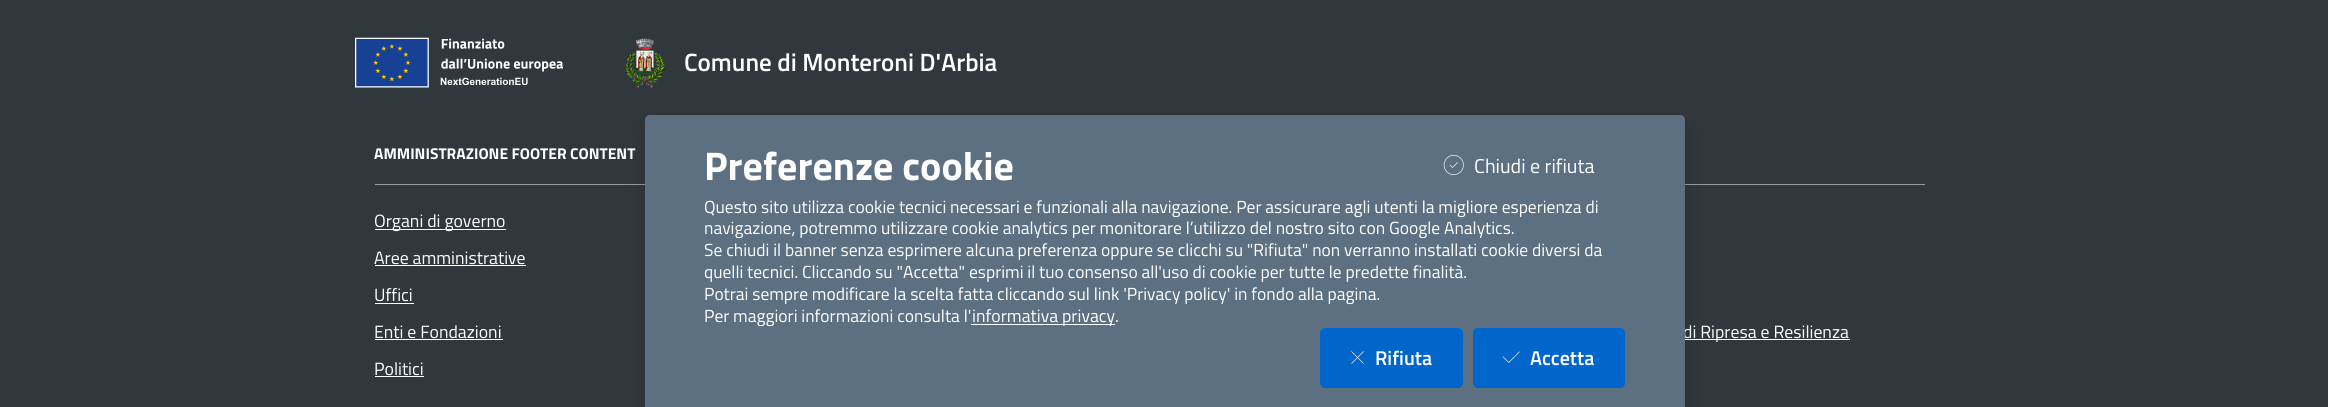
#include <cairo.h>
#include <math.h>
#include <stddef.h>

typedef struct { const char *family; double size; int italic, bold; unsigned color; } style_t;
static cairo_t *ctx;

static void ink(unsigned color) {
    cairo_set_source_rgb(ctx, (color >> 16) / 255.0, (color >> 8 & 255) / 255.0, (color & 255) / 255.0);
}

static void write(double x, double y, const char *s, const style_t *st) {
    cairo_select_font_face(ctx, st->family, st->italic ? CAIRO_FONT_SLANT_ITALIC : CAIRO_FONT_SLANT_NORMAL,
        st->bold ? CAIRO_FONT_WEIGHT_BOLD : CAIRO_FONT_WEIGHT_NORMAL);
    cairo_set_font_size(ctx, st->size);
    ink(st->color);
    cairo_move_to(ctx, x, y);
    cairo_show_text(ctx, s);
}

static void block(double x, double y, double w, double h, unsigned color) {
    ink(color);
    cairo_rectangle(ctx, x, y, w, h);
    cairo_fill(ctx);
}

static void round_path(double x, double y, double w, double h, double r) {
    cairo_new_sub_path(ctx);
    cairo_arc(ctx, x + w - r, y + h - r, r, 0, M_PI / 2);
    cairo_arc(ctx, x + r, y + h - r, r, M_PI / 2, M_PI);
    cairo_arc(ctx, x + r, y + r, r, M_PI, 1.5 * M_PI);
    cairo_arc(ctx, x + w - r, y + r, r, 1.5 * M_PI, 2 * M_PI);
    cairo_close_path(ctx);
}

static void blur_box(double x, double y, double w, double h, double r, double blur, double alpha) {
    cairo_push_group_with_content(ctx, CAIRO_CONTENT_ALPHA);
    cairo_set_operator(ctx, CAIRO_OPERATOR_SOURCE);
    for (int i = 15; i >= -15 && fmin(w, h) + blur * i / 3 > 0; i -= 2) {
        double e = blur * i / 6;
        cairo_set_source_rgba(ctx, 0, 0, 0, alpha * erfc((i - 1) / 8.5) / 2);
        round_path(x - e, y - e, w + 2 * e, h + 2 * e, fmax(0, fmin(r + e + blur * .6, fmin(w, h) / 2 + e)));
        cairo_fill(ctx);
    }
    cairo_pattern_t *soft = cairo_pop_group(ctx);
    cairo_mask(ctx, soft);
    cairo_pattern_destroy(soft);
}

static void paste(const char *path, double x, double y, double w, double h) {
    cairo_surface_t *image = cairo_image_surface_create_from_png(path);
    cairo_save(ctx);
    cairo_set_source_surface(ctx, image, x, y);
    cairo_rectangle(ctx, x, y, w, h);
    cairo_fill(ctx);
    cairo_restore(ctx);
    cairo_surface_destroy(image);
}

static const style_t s1 = {"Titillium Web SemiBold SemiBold", 25, 0, 0, 0xffffff};
static const style_t s2 = {"Titillium Web", 15.6, 0, 1, 0xffffff};
static const style_t s3 = {"Titillium Web", 17.75, 0, 0, 0xffffff};
static const style_t s4 = {"Titillium Web", 40, 0, 1, 0xffffff};
static const style_t s5 = {"Titillium Web", 20, 0, 0, 0xffffff};
static const style_t s6 = {"Titillium Web", 17.5, 0, 0, 0xffffff};
static const style_t s7 = {"Titillium Web SemiBold SemiBold", 20, 0, 0, 0xffffff};

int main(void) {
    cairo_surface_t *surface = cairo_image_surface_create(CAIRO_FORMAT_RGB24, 2328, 407);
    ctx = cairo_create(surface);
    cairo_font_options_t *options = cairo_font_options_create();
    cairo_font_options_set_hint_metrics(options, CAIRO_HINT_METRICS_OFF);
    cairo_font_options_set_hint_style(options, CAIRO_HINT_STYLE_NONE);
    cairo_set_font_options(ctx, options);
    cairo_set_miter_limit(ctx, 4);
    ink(0x30373d);
    cairo_paint(ctx);
    paste("pic1.png", 355, 37, 208, 51);
    paste("pic2.png", 626, 38, 39, 50);
    write(684, 71, "Comune di Monteroni D'Arbia", &s1);
    block(375, 184, 270, 1, 0x989b9e);
    write(374, 159, "AMMINISTRAZIONE FOOTER CONTENT", &s2);
    block(375, 229, 131, 1, 0xffffff);
    write(374, 227, "Organi di governo", &s3);
    write(374, 264, "Aree amministrative", &s3);
    block(375, 265, 151, 1, 0xffffff);
    write(374, 301, "Uffici", &s3);
    block(375, 303, 39, 1, 0xffffff);
    write(374, 338, "Enti e Fondazioni", &s3);
    block(375, 339, 128, 1, 0xffffff);
    write(374, 375, "Politici", &s3);
    block(375, 376, 49, 1, 0xffffff);
    block(1685, 184, 240, 1, 0x989b9e);
    block(1685, 339, 165, 1, 0xffffff);
    write(1683, 338, "di Ripresa e Resilienza", &s3);
    ink(0x000000);
    blur_box(645, 125, 1040, 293, 5, 10, 0.15);
    ink(0x5c7082);
    cairo_new_path(ctx);
    cairo_move_to(ctx, 650, 115);
    cairo_line_to(ctx, 1680, 115);
    cairo_curve_to(ctx, 1683, 115, 1685, 117, 1685, 120);
    cairo_line_to(ctx, 1685, 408);
    cairo_line_to(ctx, 645, 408);
    cairo_line_to(ctx, 645, 120);
    cairo_curve_to(ctx, 645, 117, 647, 115, 650, 115);
    cairo_close_path(ctx);
    cairo_fill(ctx);
    write(704, 180, "Preferenze cookie", &s4);
    paste("pic3.png", 1443, 155, 21, 20);
    write(1474, 173, "Chiudi e rifiuta", &s5);
    write(704, 213, "Questo sito utilizza cookie tecnici necessari e funzionali alla navigazione. Per assicurare agli utenti la migliore esperienza di", &s6);
    write(704, 234, "navigazione, potremmo utilizzare cookie analytics per monitorare l’utilizzo del nostro sito con Google Analytics.", &s6);
    write(704, 256, "Se chiudi il banner senza esprimere alcuna preferenza oppure se clicchi su \"Rifiuta\" non verranno installati cookie diversi da", &s6);
    write(704, 278, "quelli tecnici. Cliccando su \"Accetta\" esprimi il tuo consenso all'uso di cookie per tutte le predette finalità.", &s6);
    write(704, 300, "Potrai sempre modificare la scelta fatta cliccando sul link 'Privacy policy' in fondo alla pagina.", &s6);
    write(704, 322, "Per maggiori informazioni consulta l'", &s6);
    block(971, 324, 144, 1, 0xffffff);
    write(972, 322, "informativa privacy", &s3);
    write(1115, 322, ".", &s6);
    ink(0x0066cc);
    round_path(1320, 328, 143, 60, 5);
    cairo_fill(ctx);
    paste("pic4.png", 1351, 351, 13, 13);
    write(1375, 365, "Rifiuta", &s7);
    ink(0x0066cc);
    round_path(1473, 328, 152, 60, 5);
    cairo_fill(ctx);
    paste("pic5.png", 1502, 351, 18, 12);
    write(1530, 365, "Accetta", &s7);
    cairo_surface_write_to_png(surface, "screenshot.png");
    cairo_font_options_destroy(options);
    cairo_destroy(ctx);
    cairo_surface_destroy(surface);
    return 0;
}
